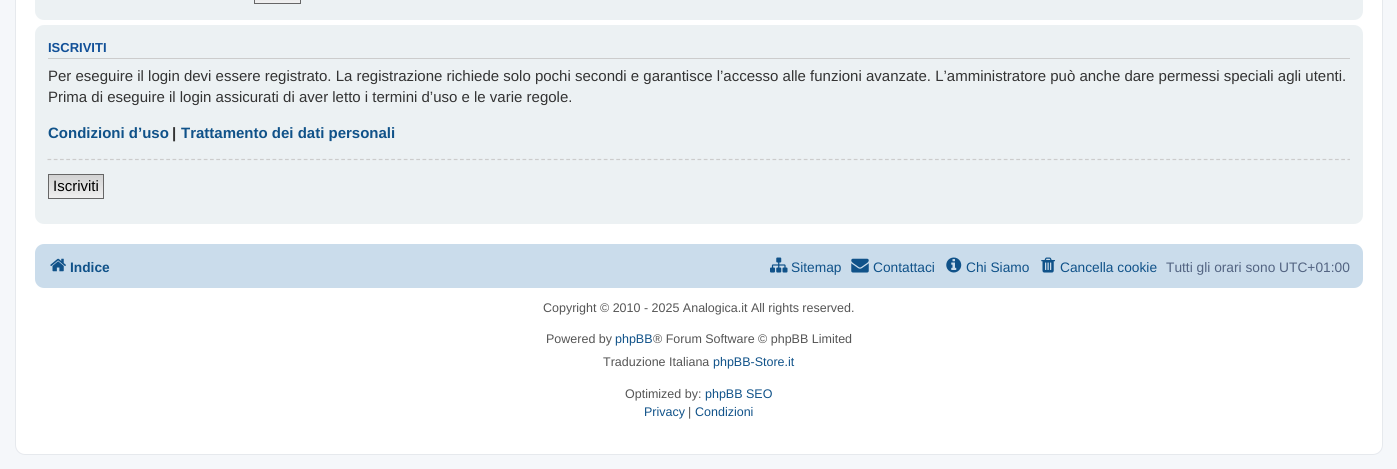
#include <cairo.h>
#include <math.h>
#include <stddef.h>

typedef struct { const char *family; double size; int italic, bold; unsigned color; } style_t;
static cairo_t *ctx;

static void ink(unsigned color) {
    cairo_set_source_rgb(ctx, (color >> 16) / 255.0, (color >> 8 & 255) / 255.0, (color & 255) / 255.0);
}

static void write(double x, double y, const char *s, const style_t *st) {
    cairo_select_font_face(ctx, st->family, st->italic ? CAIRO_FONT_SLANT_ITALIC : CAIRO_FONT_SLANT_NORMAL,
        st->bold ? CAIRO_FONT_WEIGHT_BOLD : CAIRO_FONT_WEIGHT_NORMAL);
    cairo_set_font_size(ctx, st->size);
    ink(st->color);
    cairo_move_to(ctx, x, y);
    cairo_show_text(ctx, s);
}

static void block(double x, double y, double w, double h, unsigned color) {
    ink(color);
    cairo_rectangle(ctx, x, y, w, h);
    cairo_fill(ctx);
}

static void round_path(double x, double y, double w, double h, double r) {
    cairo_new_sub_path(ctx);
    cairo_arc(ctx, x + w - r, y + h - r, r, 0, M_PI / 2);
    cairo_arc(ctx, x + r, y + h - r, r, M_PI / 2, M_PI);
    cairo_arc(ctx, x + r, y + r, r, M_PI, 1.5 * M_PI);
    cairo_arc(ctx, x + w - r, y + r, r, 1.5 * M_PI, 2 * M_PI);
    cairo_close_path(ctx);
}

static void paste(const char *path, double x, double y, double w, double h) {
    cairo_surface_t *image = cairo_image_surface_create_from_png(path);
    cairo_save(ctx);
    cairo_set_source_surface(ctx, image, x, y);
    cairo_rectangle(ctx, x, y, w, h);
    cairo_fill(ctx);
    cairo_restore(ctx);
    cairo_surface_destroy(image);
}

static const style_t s1 = {"Liberation Sans", 13, 0, 1, 0x115098};
static const style_t s2 = {"Liberation Sans", 15, 0, 0, 0x333333};
static const style_t s3 = {"Liberation Sans", 15, 0, 1, 0x105289};
static const style_t s4 = {"Liberation Sans", 15, 0, 1, 0x333333};
static const style_t s5 = {"Liberation Sans", 15, 0, 0, 0x000000};
static const style_t s6 = {"Liberation Sans", 13.75, 0, 1, 0x105289};
static const style_t s7 = {"Liberation Sans", 13.75, 0, 0, 0x105289};
static const style_t s8 = {"Liberation Sans", 13.75, 0, 0, 0x536482};
static const style_t s9 = {"Liberation Sans", 12.5, 0, 0, 0x555555};
static const style_t s10 = {"Liberation Sans", 12.5, 0, 0, 0x105289};

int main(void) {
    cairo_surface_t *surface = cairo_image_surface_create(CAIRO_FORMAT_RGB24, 1397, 469);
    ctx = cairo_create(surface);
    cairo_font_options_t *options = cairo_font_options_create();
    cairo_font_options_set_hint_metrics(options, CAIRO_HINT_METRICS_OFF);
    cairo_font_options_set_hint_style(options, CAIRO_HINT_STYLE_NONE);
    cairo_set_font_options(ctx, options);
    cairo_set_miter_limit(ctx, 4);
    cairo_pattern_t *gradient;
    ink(0xf5f7fa);
    cairo_paint(ctx);
    ink(0xffffff);
    round_path(15.5, -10.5, 1367, 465, 9.5);
    cairo_fill_preserve(ctx);
    ink(0xe6e9ed);
    cairo_set_line_width(ctx, 1);
    cairo_stroke(ctx);
    ink(0xecf1f3);
    round_path(35, -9, 1328, 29, 9);
    cairo_fill(ctx);
    gradient = cairo_pattern_create_linear(278, -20, 278, 2.5);
    cairo_pattern_add_color_stop_rgba(gradient, 0, 0.824, 0.824, 0.824, 1);
    cairo_pattern_add_color_stop_rgba(gradient, 1, 0.937, 0.937, 0.937, 1);
    cairo_set_source(ctx, gradient);
    cairo_pattern_destroy(gradient);
    cairo_rectangle(ctx, 254, 0, 47, 3);
    cairo_fill(ctx);
    cairo_rectangle(ctx, 254.5, -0.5, 46, 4);
    ink(0x666666);
    cairo_stroke(ctx);
    ink(0xecf1f3);
    round_path(35, 25, 1328, 199, 9);
    cairo_fill(ctx);
    block(48, 58, 1302, 1, 0xcccccc);
    write(48, 52, "ISCRIVITI", &s1);
    write(48, 81, "Per eseguire il login devi essere registrato. La registrazione richiede solo pochi secondi e garantisce l’accesso alle funzioni avanzate. L’amministratore può anche dare permessi speciali agli utenti.", &s2);
    write(48, 102, "Prima di eseguire il login assicurati di aver letto i termini d’uso e le varie regole.", &s2);
    write(48, 138, "Condizioni d’uso", &s3);
    write(172, 138, "|", &s4);
    write(181, 138, "Trattamento dei dati personali", &s3);
    cairo_new_path(ctx);
    cairo_move_to(ctx, 47.5, 159.5);
    cairo_line_to(ctx, 1350, 159.5);
    ink(0xcccccc);
    cairo_set_line_width(ctx, 1.2);
    cairo_set_dash(ctx, (double[]){3.75, 2.5}, 2, 0);
    cairo_stroke(ctx);
    gradient = cairo_pattern_create_linear(76, 175, 76, 198);
    cairo_pattern_add_color_stop_rgba(gradient, 0, 0.824, 0.824, 0.824, 1);
    cairo_pattern_add_color_stop_rgba(gradient, 1, 0.937, 0.937, 0.937, 1);
    cairo_set_source(ctx, gradient);
    cairo_pattern_destroy(gradient);
    cairo_rectangle(ctx, 49, 175, 54, 23);
    cairo_fill(ctx);
    cairo_rectangle(ctx, 48.5, 174.5, 55, 24);
    ink(0x666666);
    cairo_set_line_width(ctx, 1);
    cairo_set_dash(ctx, NULL, 0, 0);
    cairo_stroke(ctx);
    write(53, 191, "Iscriviti", &s5);
    ink(0xcadceb);
    round_path(35, 244, 1328, 44, 9);
    cairo_fill(ctx);
    paste("pic1.png", 50, 258, 16, 14);
    write(70, 272, "Indice", &s6);
    paste("pic2.png", 770, 257, 18, 16);
    write(791, 272, "Sitemap", &s7);
    paste("pic3.png", 851, 258, 18, 15);
    write(873, 272, "Contattaci", &s7);
    paste("pic4.png", 946, 257, 16, 16);
    write(966, 272, "Chi Siamo", &s7);
    paste("pic5.png", 1041, 257, 14, 16);
    write(1060, 272, "Cancella cookie", &s7);
    write(1166, 272, "Tutti gli orari sono UTC+01:00", &s8);
    write(543, 312, "Copyright © 2010 - 2025 Analogica.it All rights reserved.", &s9);
    write(546, 343, "Powered by", &s9);
    write(615, 343, "phpBB", &s10);
    write(653, 343, "® Forum Software © phpBB Limited", &s9);
    write(603, 366, "Traduzione Italiana", &s9);
    write(713, 366, "phpBB-Store.it", &s10);
    write(625, 398, "Optimized by:", &s9);
    write(705, 398, "phpBB SEO", &s10);
    write(644, 416, "Privacy", &s10);
    write(688, 416, "|", &s9);
    write(695, 416, "Condizioni", &s10);
    cairo_surface_write_to_png(surface, "screenshot.png");
    cairo_font_options_destroy(options);
    cairo_destroy(ctx);
    cairo_surface_destroy(surface);
    return 0;
}
